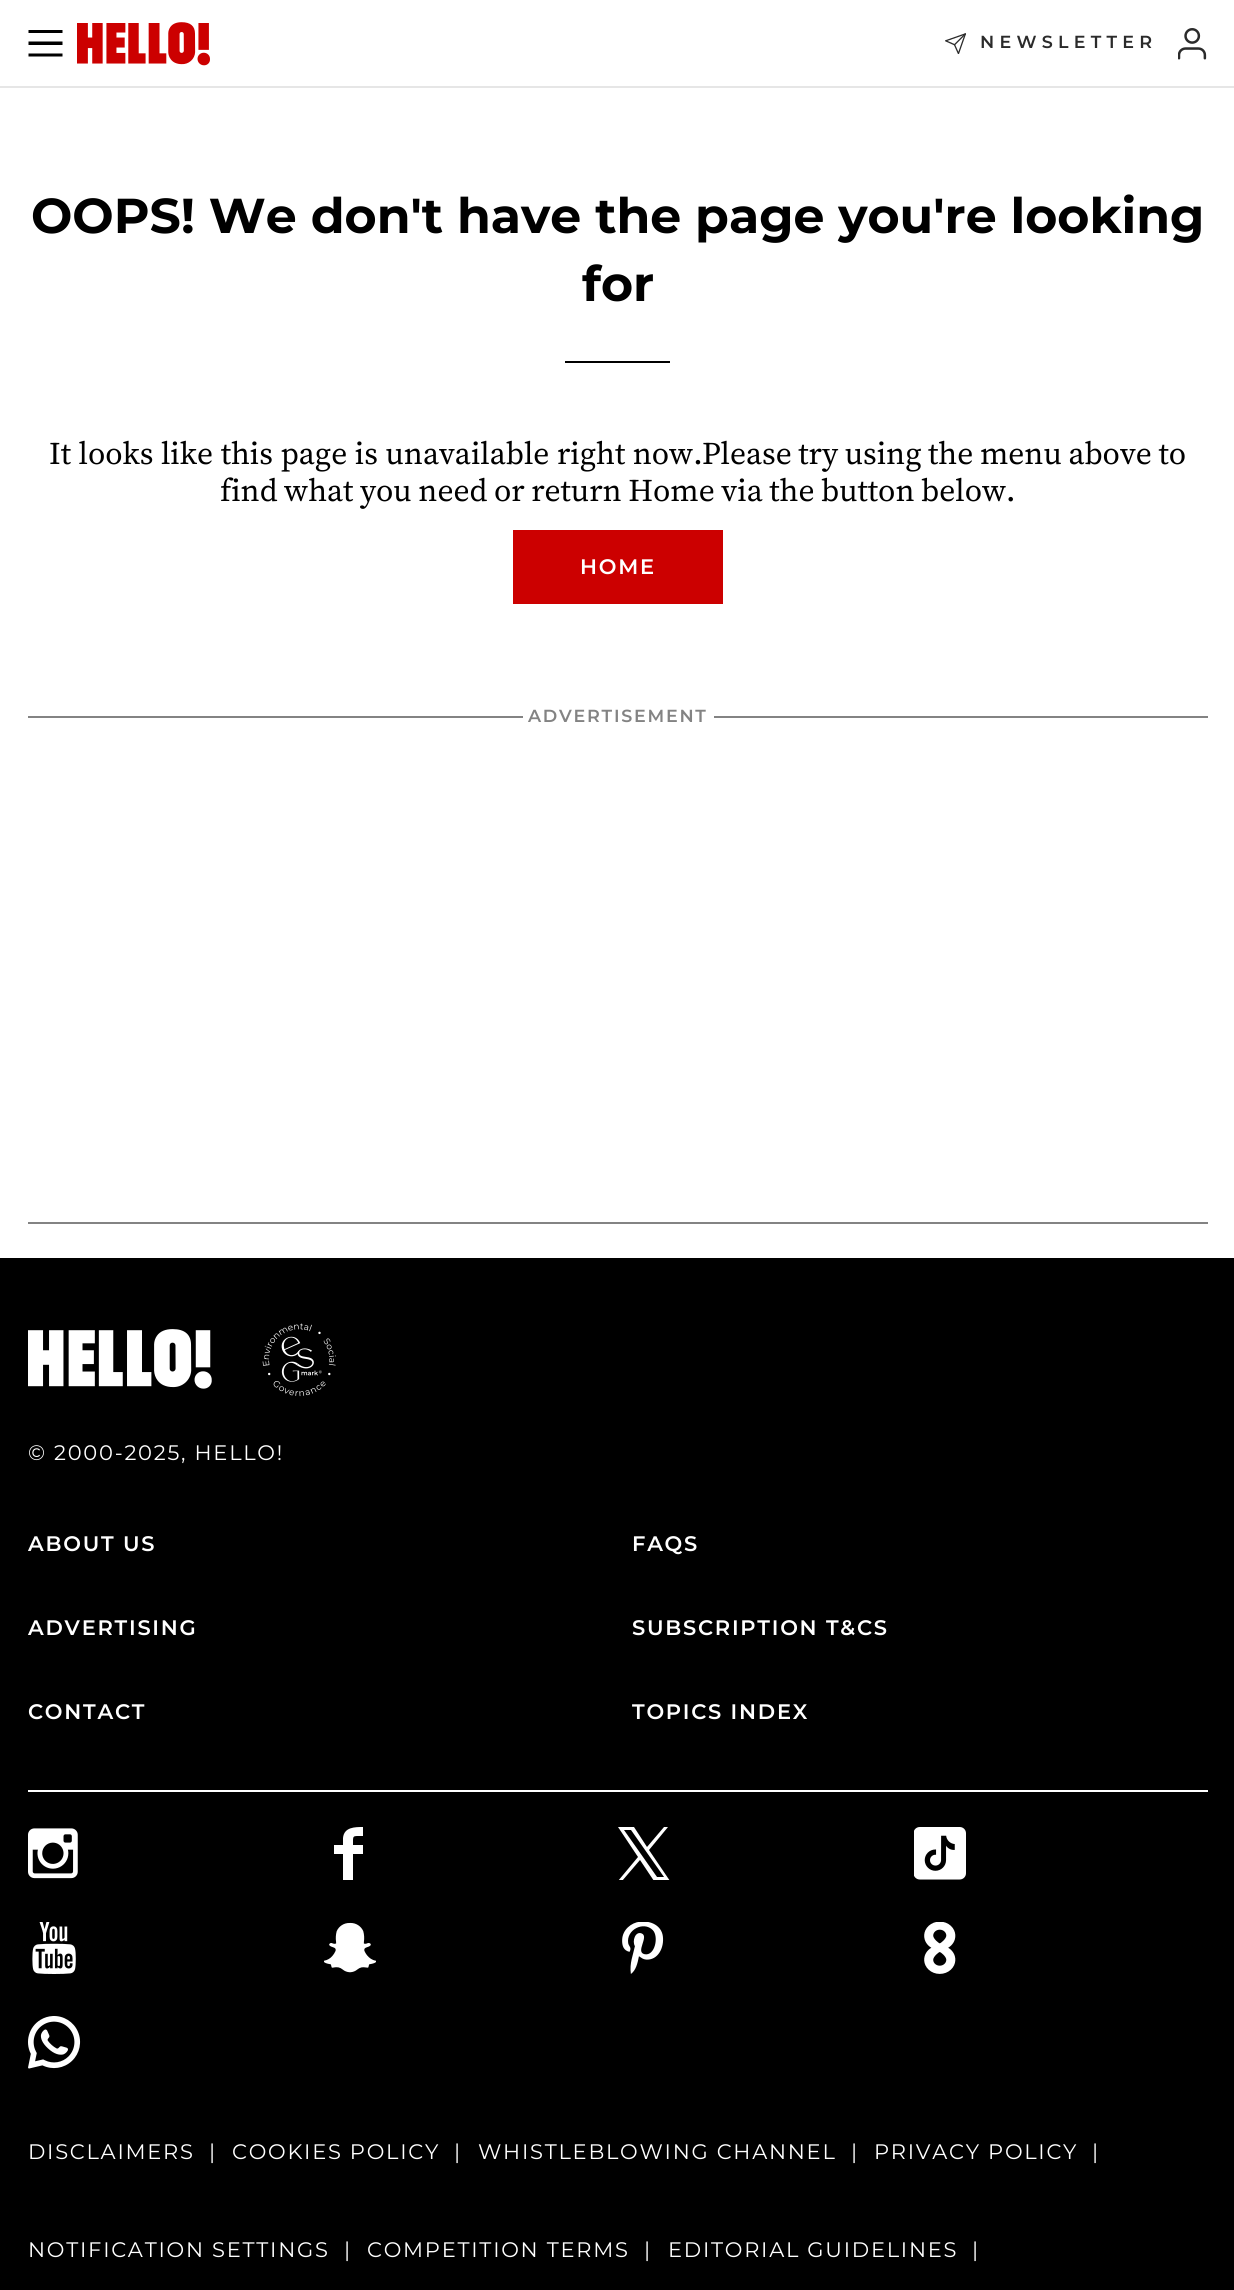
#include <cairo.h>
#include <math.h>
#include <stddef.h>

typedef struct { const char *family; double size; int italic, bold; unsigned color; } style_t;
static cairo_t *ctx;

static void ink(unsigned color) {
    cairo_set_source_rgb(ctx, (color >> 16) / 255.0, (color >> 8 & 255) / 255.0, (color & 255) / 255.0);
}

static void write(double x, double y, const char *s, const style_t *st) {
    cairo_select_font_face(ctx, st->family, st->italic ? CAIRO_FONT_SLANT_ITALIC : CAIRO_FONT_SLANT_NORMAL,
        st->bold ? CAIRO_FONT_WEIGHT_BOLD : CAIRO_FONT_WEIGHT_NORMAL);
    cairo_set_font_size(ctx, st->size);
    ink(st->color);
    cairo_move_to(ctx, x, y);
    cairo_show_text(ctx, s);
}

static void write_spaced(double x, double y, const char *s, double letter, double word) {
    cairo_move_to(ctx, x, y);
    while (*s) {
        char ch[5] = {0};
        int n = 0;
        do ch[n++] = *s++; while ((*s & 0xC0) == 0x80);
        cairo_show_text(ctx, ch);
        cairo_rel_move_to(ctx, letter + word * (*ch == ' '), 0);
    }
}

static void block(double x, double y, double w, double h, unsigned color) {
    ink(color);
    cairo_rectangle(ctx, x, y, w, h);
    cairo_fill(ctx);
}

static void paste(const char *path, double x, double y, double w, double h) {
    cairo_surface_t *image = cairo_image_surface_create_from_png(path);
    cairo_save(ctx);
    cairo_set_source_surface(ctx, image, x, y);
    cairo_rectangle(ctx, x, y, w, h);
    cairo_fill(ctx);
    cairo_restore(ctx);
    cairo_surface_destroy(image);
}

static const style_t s1 = {"Montserrat", 49, 0, 1, 0x000000};
static const style_t s2 = {"Montserrat", 21, 0, 0, 0xffffff};

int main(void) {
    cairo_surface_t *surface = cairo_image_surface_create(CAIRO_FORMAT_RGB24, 1234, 2290);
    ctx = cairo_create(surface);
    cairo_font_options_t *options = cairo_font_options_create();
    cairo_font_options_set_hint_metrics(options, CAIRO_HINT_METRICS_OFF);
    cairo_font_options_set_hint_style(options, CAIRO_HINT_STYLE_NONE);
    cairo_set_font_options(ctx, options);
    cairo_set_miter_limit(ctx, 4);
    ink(0xffffff);
    cairo_paint(ctx);
    block(0, 86, 1234, 2, 0xe6e6e6);
    ink(0x000000);
    cairo_set_fill_rule(ctx, CAIRO_FILL_RULE_EVEN_ODD);
    cairo_new_path(ctx);
    cairo_move_to(ctx, 62.5, 33);
    cairo_line_to(ctx, 28.5, 33);
    cairo_line_to(ctx, 28.5, 30);
    cairo_line_to(ctx, 62.5, 30);
    cairo_close_path(ctx);
    cairo_move_to(ctx, 62.5, 45);
    cairo_line_to(ctx, 28.5, 45);
    cairo_line_to(ctx, 28.5, 41.5);
    cairo_line_to(ctx, 62.5, 41.5);
    cairo_close_path(ctx);
    cairo_move_to(ctx, 62.5, 56.5);
    cairo_line_to(ctx, 28.5, 56.5);
    cairo_line_to(ctx, 28.5, 53.5);
    cairo_line_to(ctx, 62.5, 53.5);
    cairo_close_path(ctx);
    cairo_fill(ctx);
    paste("pic1.png", 77, 22, 133, 44);
    paste("pic2.png", 945, 33, 21, 21);
    cairo_select_font_face(ctx, "Montserrat SemiBold", CAIRO_FONT_SLANT_NORMAL, CAIRO_FONT_WEIGHT_NORMAL);
    cairo_set_font_size(ctx, 17.5);
    ink(0x2b2b2b);
    write_spaced(980, 48, "NEWSLETTER", 5.25, 0);
    paste("pic3.png", 1178, 28, 29, 32);
    write(31, 233, "OOPS! We don't have the page you're looking", &s1);
    write(582, 301, "for", &s1);
    block(565, 361, 105, 2, 0x000000);
    cairo_select_font_face(ctx, "Source Serif 4", CAIRO_FONT_SLANT_NORMAL, CAIRO_FONT_WEIGHT_NORMAL);
    cairo_set_font_size(ctx, 31.5);
    write_spaced(49, 464, "It looks like this page is unavailable right now.", 0, 0.25);
    write_spaced(702, 464, "Please try using the menu above to", 0, -0.75);
    write_spaced(220, 501, "find what you need or return Home via the button below.", 0, -0.75);
    block(513, 530, 210, 74, 0xcc0000);
    cairo_select_font_face(ctx, "Montserrat SemiBold", CAIRO_FONT_SLANT_NORMAL, CAIRO_FONT_WEIGHT_NORMAL);
    cairo_set_font_size(ctx, 21);
    ink(0xffffff);
    write_spaced(580, 574, "HOME", 1.75, 0);
    block(28, 716, 1180, 2, 0x838383);
    block(28, 1222, 1180, 2, 0x838383);
    block(523, 716, 191, 2, 0xffffff);
    cairo_set_font_size(ctx, 17.5);
    ink(0x838383);
    write_spaced(528, 722, "ADVERTISEMENT", 1.75, 0);
    block(0, 1258, 1234, 1032, 0x000000);
    paste("pic4.png", 28, 1329, 184, 60);
    paste("pic5.png", 262, 1323, 74, 74);
    cairo_select_font_face(ctx, "Montserrat", CAIRO_FONT_SLANT_NORMAL, CAIRO_FONT_WEIGHT_NORMAL);
    cairo_set_font_size(ctx, 21);
    ink(0xffffff);
    write_spaced(28, 1460, "© 2000-2025, HELLO!", 1.75, 0);
    cairo_select_font_face(ctx, "Montserrat SemiBold", CAIRO_FONT_SLANT_NORMAL, CAIRO_FONT_WEIGHT_NORMAL);
    write_spaced(28, 1551, "ABOUT US", 1.75, 0);
    write_spaced(632, 1551, "FAQS", 1.75, 0);
    write_spaced(28, 1635, "ADVERTISING", 1.75, 0);
    write_spaced(632, 1635, "SUBSCRIPTION T&CS", 1.75, 0);
    write_spaced(28, 1719, "CONTACT", 1.75, 0);
    write_spaced(632, 1719, "TOPICS INDEX", 1.75, 0);
    block(28, 1790, 1180, 2, 0xffffff);
    paste("pic6.png", 28, 1828, 50, 51);
    cairo_new_path(ctx);
    cairo_move_to(ctx, 363, 1836);
    cairo_curve_to(ctx, 352, 1836, 353, 1835, 353, 1845);
    cairo_line_to(ctx, 363, 1845);
    cairo_line_to(ctx, 363, 1854);
    cairo_line_to(ctx, 353, 1854);
    cairo_line_to(ctx, 353, 1880);
    cairo_line_to(ctx, 343, 1880);
    cairo_line_to(ctx, 343, 1854);
    cairo_line_to(ctx, 334, 1854);
    cairo_line_to(ctx, 334, 1845);
    cairo_line_to(ctx, 343, 1845);
    cairo_line_to(ctx, 343, 1838);
    cairo_curve_to(ctx, 344, 1827, 355, 1827, 363, 1827);
    cairo_close_path(ctx);
    cairo_fill(ctx);
    cairo_save(ctx);
    cairo_set_fill_rule(ctx, CAIRO_FILL_RULE_WINDING);
    cairo_rectangle(ctx, 618, 1827, 52, 53);
    cairo_clip(ctx);
    cairo_new_path(ctx);
    cairo_move_to(ctx, 649, 1850);
    cairo_line_to(ctx, 668, 1827);
    cairo_line_to(ctx, 664, 1827);
    cairo_line_to(ctx, 647, 1847);
    cairo_line_to(ctx, 634, 1827);
    cairo_line_to(ctx, 618, 1827);
    cairo_line_to(ctx, 638, 1857);
    cairo_line_to(ctx, 618, 1881);
    cairo_line_to(ctx, 622, 1881);
    cairo_line_to(ctx, 640, 1860);
    cairo_line_to(ctx, 654, 1881);
    cairo_line_to(ctx, 670, 1881);
    cairo_close_path(ctx);
    cairo_move_to(ctx, 643, 1857);
    cairo_line_to(ctx, 624, 1830);
    cairo_line_to(ctx, 631, 1830);
    cairo_line_to(ctx, 664, 1877);
    cairo_line_to(ctx, 657, 1877);
    cairo_close_path(ctx);
    cairo_fill(ctx);
    cairo_restore(ctx);
    paste("pic7.png", 914, 1827, 52, 53);
    paste("pic8.png", 32, 1922, 44, 52);
    paste("pic9.png", 324, 1922, 52, 51);
    paste("pic10.png", 622, 1922, 42, 52);
    paste("pic11.png", 924, 1922, 32, 52);
    paste("pic12.png", 28, 2016, 53, 53);
    cairo_select_font_face(ctx, "Montserrat", CAIRO_FONT_SLANT_NORMAL, CAIRO_FONT_WEIGHT_NORMAL);
    write_spaced(28, 2159, "DISCLAIMERS", 1.75, 0);
    write(209, 2159, "|", &s2);
    write_spaced(232, 2159, "COOKIES POLICY", 1.75, 0);
    write(454, 2159, "|", &s2);
    write_spaced(478, 2159, "WHISTLEBLOWING CHANNEL", 1.75, 0);
    write(851, 2159, "|", &s2);
    write_spaced(874, 2159, "PRIVACY POLICY", 1.75, 0);
    write(1092, 2159, "|", &s2);
    write_spaced(28, 2257, "NOTIFICATION SETTINGS", 1.75, 0);
    write(344, 2257, "|", &s2);
    write_spaced(367, 2257, "COMPETITION TERMS", 1.75, 0);
    write(644, 2257, "|", &s2);
    write_spaced(668, 2257, "EDITORIAL GUIDELINES", 1.75, 0);
    write(972, 2257, "|", &s2);
    cairo_surface_write_to_png(surface, "screenshot.png");
    cairo_font_options_destroy(options);
    cairo_destroy(ctx);
    cairo_surface_destroy(surface);
    return 0;
}
